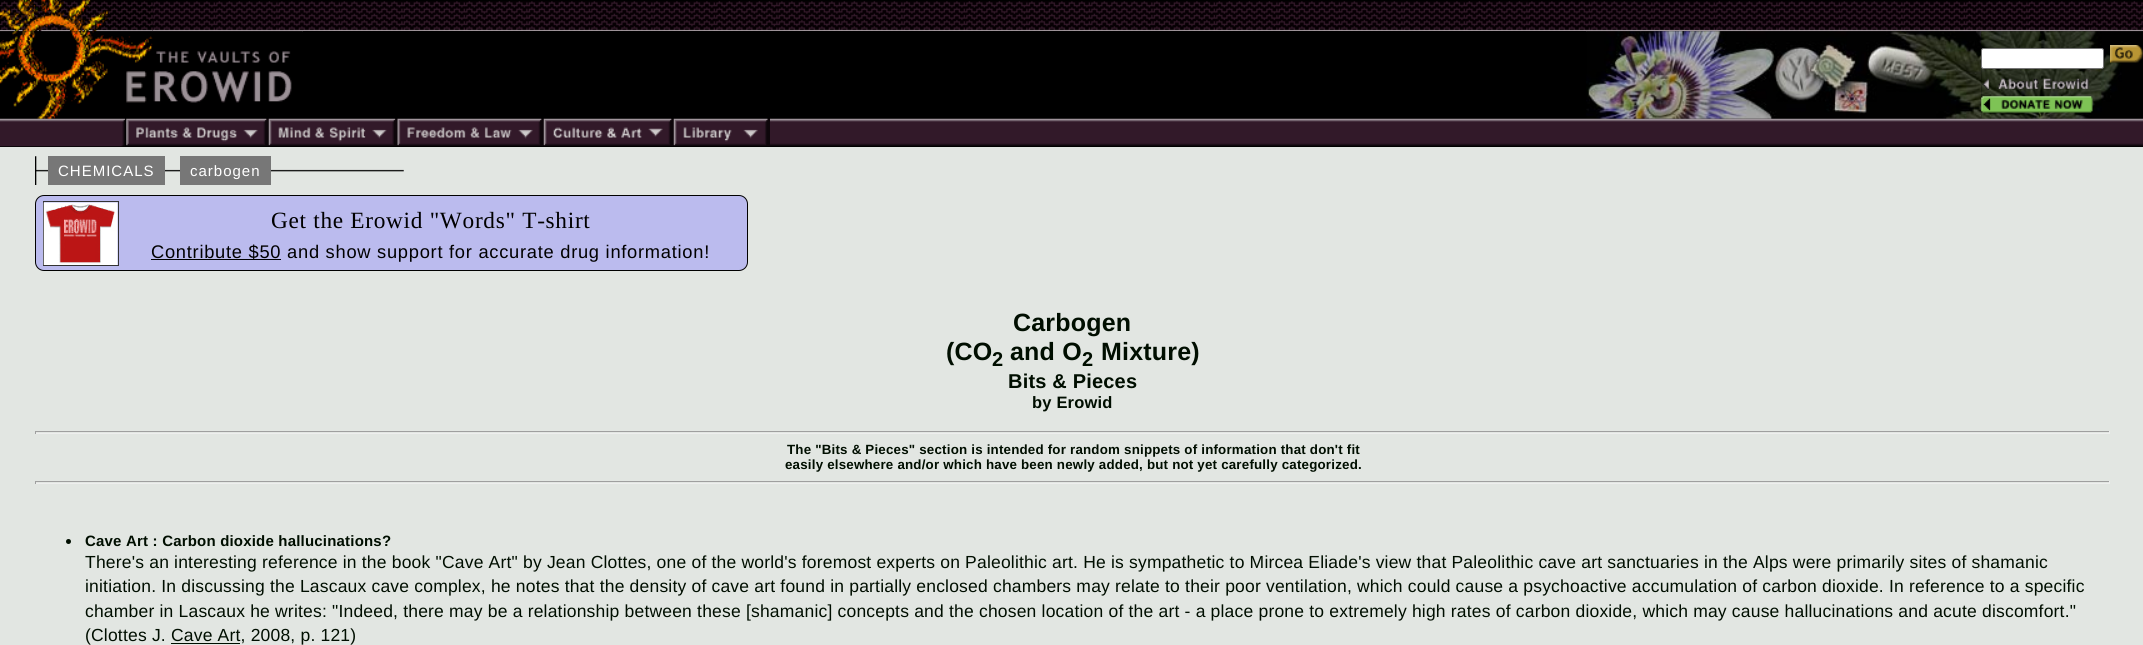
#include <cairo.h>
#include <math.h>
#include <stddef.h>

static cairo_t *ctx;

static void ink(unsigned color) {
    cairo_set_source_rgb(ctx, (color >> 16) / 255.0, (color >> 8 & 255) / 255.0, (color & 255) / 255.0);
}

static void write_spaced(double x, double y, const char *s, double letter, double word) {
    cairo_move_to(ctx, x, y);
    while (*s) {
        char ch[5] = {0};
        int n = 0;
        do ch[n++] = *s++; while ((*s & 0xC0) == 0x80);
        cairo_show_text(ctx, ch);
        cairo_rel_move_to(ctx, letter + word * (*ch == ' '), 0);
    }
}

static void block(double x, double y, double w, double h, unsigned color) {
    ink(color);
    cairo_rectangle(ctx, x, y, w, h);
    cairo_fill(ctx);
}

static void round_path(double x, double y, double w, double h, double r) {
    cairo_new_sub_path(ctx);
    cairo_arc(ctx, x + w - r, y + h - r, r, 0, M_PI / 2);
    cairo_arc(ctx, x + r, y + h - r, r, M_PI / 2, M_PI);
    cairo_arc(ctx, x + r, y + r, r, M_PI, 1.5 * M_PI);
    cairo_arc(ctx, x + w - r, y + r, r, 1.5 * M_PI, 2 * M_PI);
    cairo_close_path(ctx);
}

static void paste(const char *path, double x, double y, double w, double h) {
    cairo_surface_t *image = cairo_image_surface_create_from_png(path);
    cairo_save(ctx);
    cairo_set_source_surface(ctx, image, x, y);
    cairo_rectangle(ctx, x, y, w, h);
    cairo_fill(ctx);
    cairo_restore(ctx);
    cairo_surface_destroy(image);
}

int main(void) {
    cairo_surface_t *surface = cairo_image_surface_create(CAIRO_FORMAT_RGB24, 2143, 645);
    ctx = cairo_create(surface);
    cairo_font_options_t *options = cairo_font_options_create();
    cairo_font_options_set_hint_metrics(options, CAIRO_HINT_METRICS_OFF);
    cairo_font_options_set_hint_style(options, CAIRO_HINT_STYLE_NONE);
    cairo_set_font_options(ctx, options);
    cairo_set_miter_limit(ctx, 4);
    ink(0xe2e6e2);
    cairo_paint(ctx);
    block(0, 0, 2143, 147, 0x000000);
    paste("pic2.png", 152, 1, 1991, 31);
    paste("pic1.png", 0, 0, 153, 32);
    paste("pic3.png", 0, 31, 153, 88);
    paste("pic4.png", 152, 31, 151, 72);
    block(303, 31, 1283, 1, 0x000000);
    paste("pic5.png", 1586, 31, 396, 88);
    paste("pic6.png", 1981, 31, 162, 88);
    ink(0xffffff);
    round_path(1981.5, 48.5, 122, 20, 2);
    cairo_fill_preserve(ctx);
    ink(0x767676);
    cairo_set_line_width(ctx, 1);
    cairo_stroke(ctx);
    paste("pic7.png", 2110, 45, 33, 18);
    paste("pic8.png", 1982, 78, 107, 12);
    paste("pic9.png", 1981, 96, 112, 17);
    paste("pic10.png", 0, 118, 126, 29);
    paste("pic11.png", 126, 118, 143, 28);
    paste("pic12.png", 268, 118, 130, 28);
    paste("pic13.png", 397, 118, 147, 28);
    paste("pic14.png", 543, 118, 131, 28);
    paste("pic15.png", 673, 118, 97, 28);
    paste("pic16.png", 770, 118, 1373, 28);
    paste("pic17.png", 35, 156, 369, 29);
    block(48, 156, 117, 29, 0x777777);
    cairo_select_font_face(ctx, "Liberation Sans", CAIRO_FONT_SLANT_NORMAL, CAIRO_FONT_WEIGHT_NORMAL);
    cairo_set_font_size(ctx, 15);
    ink(0xffffff);
    write_spaced(58, 176, "CHEMICALS", 1, 0);
    block(180, 156, 91, 29, 0x777777);
    ink(0xffffff);
    write_spaced(190, 176, "carbogen", 1, 0);
    ink(0xbbbbee);
    round_path(35.5, 195.5, 712, 75, 8.5);
    cairo_fill_preserve(ctx);
    ink(0x000000);
    cairo_stroke(ctx);
    cairo_rectangle(ctx, 43.5, 201.5, 75, 64);
    ink(0x333333);
    cairo_stroke(ctx);
    paste("pic18.png", 43, 202, 75, 63);
    cairo_select_font_face(ctx, "Liberation Serif", CAIRO_FONT_SLANT_NORMAL, CAIRO_FONT_WEIGHT_NORMAL);
    cairo_set_font_size(ctx, 23.3);
    ink(0x000000);
    write_spaced(271, 228, "Get the Erowid \"Words\" T-shirt", 0.7, 0);
    block(151, 259, 130, 1, 0x000000);
    cairo_select_font_face(ctx, "Liberation Sans", CAIRO_FONT_SLANT_NORMAL, CAIRO_FONT_WEIGHT_NORMAL);
    cairo_set_font_size(ctx, 18.3);
    write_spaced(151, 258, "Contribute $50 and show support for accurate drug information!", 0.73, 0);
    cairo_select_font_face(ctx, "Liberation Sans", CAIRO_FONT_SLANT_NORMAL, CAIRO_FONT_WEIGHT_BOLD);
    cairo_set_font_size(ctx, 25);
    ink(0x000e00);
    write_spaced(1013, 331, "Carbogen", 0.19, 0);
    write_spaced(946, 360, "(CO", 0.19, 0);
    cairo_set_font_size(ctx, 20);
    write_spaced(992, 366, "2", 0.19, 0);
    cairo_set_font_size(ctx, 25);
    write_spaced(1010, 360, "and O", 0.19, 0);
    cairo_set_font_size(ctx, 20);
    write_spaced(1082, 366, "2", 0.19, 0);
    cairo_set_font_size(ctx, 25);
    write_spaced(1101, 360, "Mixture)", 0.19, 0);
    cairo_set_font_size(ctx, 20);
    write_spaced(1008, 388, "Bits & Pieces", 0.19, 0);
    cairo_set_font_size(ctx, 16.5);
    write_spaced(1032, 408, "by Erowid", 0.19, 0);
    block(35, 431, 2075, 1, 0x9f9f9f);
    block(2109, 431, 1, 3, 0xeeeeee);
    block(35, 433, 2075, 1, 0xeeeeee);
    block(35, 431, 1, 3, 0x9f9f9f);
    cairo_set_font_size(ctx, 13.35);
    ink(0x000e00);
    write_spaced(787, 454, "The \"Bits & Pieces\" section is intended for random snippets of information that don't fit", 0.19, 0);
    write_spaced(785, 469, "easily elsewhere and/or which have been newly added, but not yet carefully categorized.", 0.19, 0);
    block(35, 481, 2075, 1, 0x9f9f9f);
    block(2109, 481, 1, 3, 0xeeeeee);
    block(35, 483, 2075, 1, 0xeeeeee);
    block(35, 481, 1, 3, 0x9f9f9f);
    ink(0x000e00);
    cairo_new_path(ctx);
    cairo_arc(ctx, 68.5, 541.5, 2.5, 0, 2 * M_PI);
    cairo_fill(ctx);
    cairo_set_font_size(ctx, 15);
    write_spaced(85, 546, "Cave Art : Carbon dioxide hallucinations?", 0.19, 0);
    cairo_select_font_face(ctx, "Liberation Sans", CAIRO_FONT_SLANT_NORMAL, CAIRO_FONT_WEIGHT_NORMAL);
    cairo_set_font_size(ctx, 17.5);
    write_spaced(85, 568, "There's an interesting reference in the book \"Cave Art\" by Jean Clottes, one of the world's foremost experts on Paleolithic art. He is sympathetic to Mircea Eliade's view that Paleolithic cave art sanctuaries in the Alps were primarily sites of shamanic", 0.19, 0);
    write_spaced(85, 592, "initiation. In discussing the Lascaux cave complex, he notes that the density of cave art found in partially enclosed chambers may relate to their poor ventilation, which could cause a psychoactive accumulation of carbon dioxide. In reference to a specific", 0.19, 0);
    write_spaced(85, 617, "chamber in Lascaux he writes: \"Indeed, there may be a relationship between these [shamanic] concepts and the chosen location of the art - a place prone to extremely high rates of carbon dioxide, which may cause hallucinations and acute discomfort.\"", 0.19, 0);
    write_spaced(85, 641, "(Clottes J. Cave Art, 2008, p. 121)", 0.19, 0);
    block(171, 643, 69, 1, 0x000e00);
    cairo_surface_write_to_png(surface, "screenshot.png");
    cairo_font_options_destroy(options);
    cairo_destroy(ctx);
    cairo_surface_destroy(surface);
    return 0;
}
